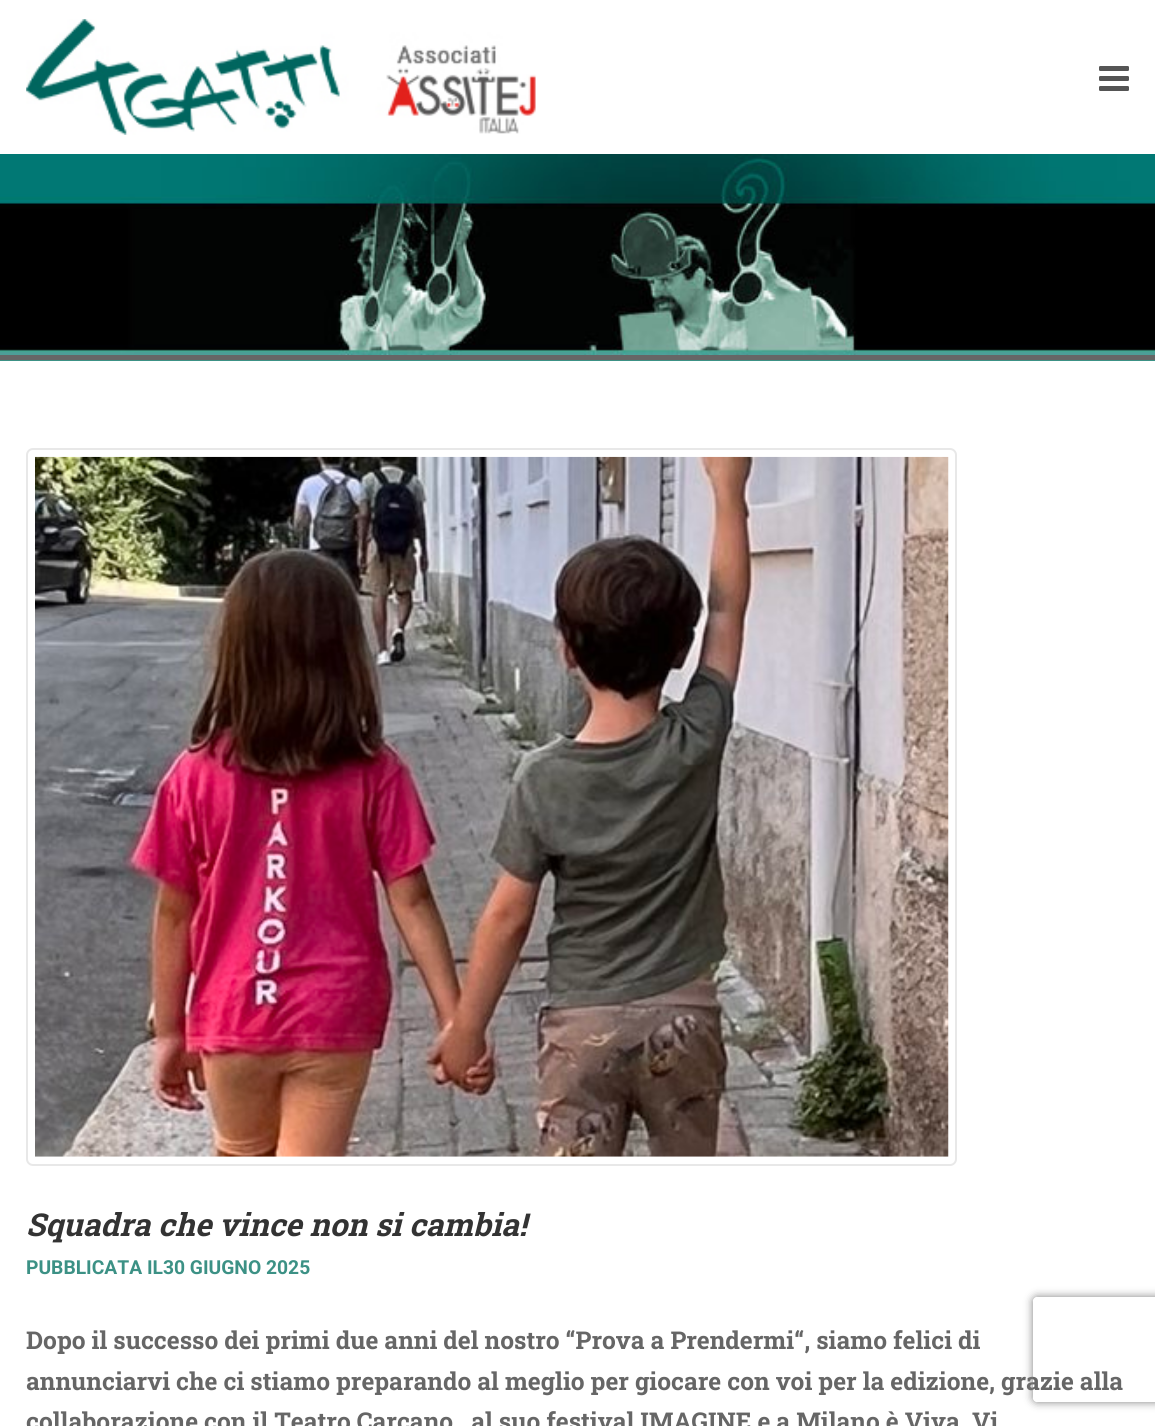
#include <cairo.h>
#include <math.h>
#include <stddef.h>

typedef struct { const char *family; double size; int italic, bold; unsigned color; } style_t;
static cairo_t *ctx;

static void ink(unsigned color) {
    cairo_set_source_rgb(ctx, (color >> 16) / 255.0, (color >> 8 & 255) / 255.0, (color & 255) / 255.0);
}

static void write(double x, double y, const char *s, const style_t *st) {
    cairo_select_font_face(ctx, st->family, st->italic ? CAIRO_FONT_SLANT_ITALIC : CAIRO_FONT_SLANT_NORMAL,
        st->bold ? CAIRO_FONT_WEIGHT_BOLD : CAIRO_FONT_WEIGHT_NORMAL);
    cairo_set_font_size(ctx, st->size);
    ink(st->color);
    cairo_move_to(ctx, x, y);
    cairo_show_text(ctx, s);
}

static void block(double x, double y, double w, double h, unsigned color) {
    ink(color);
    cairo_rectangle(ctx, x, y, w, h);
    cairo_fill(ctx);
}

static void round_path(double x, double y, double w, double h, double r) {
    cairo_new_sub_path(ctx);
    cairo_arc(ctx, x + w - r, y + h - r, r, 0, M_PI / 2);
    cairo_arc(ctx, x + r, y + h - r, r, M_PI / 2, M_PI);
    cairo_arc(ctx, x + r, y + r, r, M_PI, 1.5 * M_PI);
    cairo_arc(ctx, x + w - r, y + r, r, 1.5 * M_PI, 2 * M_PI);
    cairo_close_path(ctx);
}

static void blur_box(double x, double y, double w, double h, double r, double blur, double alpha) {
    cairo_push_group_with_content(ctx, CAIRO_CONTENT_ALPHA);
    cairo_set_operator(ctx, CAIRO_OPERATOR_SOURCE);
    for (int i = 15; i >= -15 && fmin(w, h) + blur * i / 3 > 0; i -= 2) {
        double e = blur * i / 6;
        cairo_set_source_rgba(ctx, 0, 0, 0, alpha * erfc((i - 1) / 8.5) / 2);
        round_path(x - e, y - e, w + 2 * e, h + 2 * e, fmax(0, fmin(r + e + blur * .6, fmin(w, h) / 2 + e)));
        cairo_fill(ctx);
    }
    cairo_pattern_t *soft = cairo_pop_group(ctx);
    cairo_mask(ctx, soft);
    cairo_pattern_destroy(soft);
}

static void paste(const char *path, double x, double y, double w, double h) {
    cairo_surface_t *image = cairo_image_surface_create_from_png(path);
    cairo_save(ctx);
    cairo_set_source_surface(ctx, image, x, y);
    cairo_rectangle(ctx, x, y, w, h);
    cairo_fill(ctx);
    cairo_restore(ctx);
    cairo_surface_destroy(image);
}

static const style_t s1 = {"Roboto Slab", 31.5, 1, 1, 0x333333};
static const style_t s2 = {"Roboto", 19.25, 0, 1, 0x3c9185};
static const style_t s3 = {"Roboto Slab", 24.5, 0, 1, 0x666666};

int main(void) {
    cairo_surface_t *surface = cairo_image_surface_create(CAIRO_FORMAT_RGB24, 1155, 1426);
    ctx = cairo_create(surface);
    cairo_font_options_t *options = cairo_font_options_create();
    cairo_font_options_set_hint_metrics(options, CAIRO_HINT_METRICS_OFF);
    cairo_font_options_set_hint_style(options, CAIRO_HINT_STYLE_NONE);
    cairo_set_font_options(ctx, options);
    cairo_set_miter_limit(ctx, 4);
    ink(0xffffff);
    cairo_paint(ctx);
    paste("pic1.png", 26, 19, 510, 116);
    paste("pic2.png", 1099, 66, 30, 25);
    block(0, 360, 1155, 1, 0x3c9185);
    paste("pic3.png", 0, 154, 1155, 201);
    block(0, 355, 1155, 5, 0x666666);
    round_path(27, 449, 929, 716, 6);
    ink(0xe8e8e8);
    cairo_stroke(ctx);
    paste("pic4.png", 35, 456, 914, 701);
    write(26, 1236, "Squadra che vince non si cambia!", &s1);
    write(26, 1274, "PUBBLICATA IL30 GIUGNO 2025", &s2);
    write(26, 1349, "Dopo il successo dei primi due anni del nostro “Prova a Prendermi“, siamo felici di", &s3);
    write(26, 1390, "annunciarvi che ci stiamo preparando al meglio per giocare con voi per la edizione, grazie alla", &s3);
    write(26, 1430, "collaborazione con il Teatro Carcano , al suo festival IMAGINE e a Milano è Viva. Vi", &s3);
    cairo_save(ctx);
    cairo_set_fill_rule(ctx, CAIRO_FILL_RULE_EVEN_ODD);
    cairo_new_path(ctx);
    cairo_move_to(ctx, 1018, 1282);
    cairo_line_to(ctx, 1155, 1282);
    cairo_line_to(ctx, 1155, 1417);
    cairo_line_to(ctx, 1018, 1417);
    cairo_close_path(ctx);
    cairo_move_to(ctx, 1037, 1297);
    cairo_line_to(ctx, 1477, 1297);
    cairo_curve_to(ctx, 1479, 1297, 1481, 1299, 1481, 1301);
    cairo_line_to(ctx, 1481, 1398);
    cairo_curve_to(ctx, 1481, 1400, 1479, 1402, 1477, 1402);
    cairo_line_to(ctx, 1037, 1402);
    cairo_curve_to(ctx, 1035, 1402, 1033, 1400, 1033, 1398);
    cairo_line_to(ctx, 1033, 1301);
    cairo_curve_to(ctx, 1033, 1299, 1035, 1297, 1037, 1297);
    cairo_close_path(ctx);
    cairo_clip(ctx);
    ink(0x808080);
    blur_box(1033, 1297, 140, 105, 4, 4.5, 1);
    cairo_restore(ctx);
    cairo_surface_write_to_png(surface, "screenshot.png");
    cairo_font_options_destroy(options);
    cairo_destroy(ctx);
    cairo_surface_destroy(surface);
    return 0;
}
